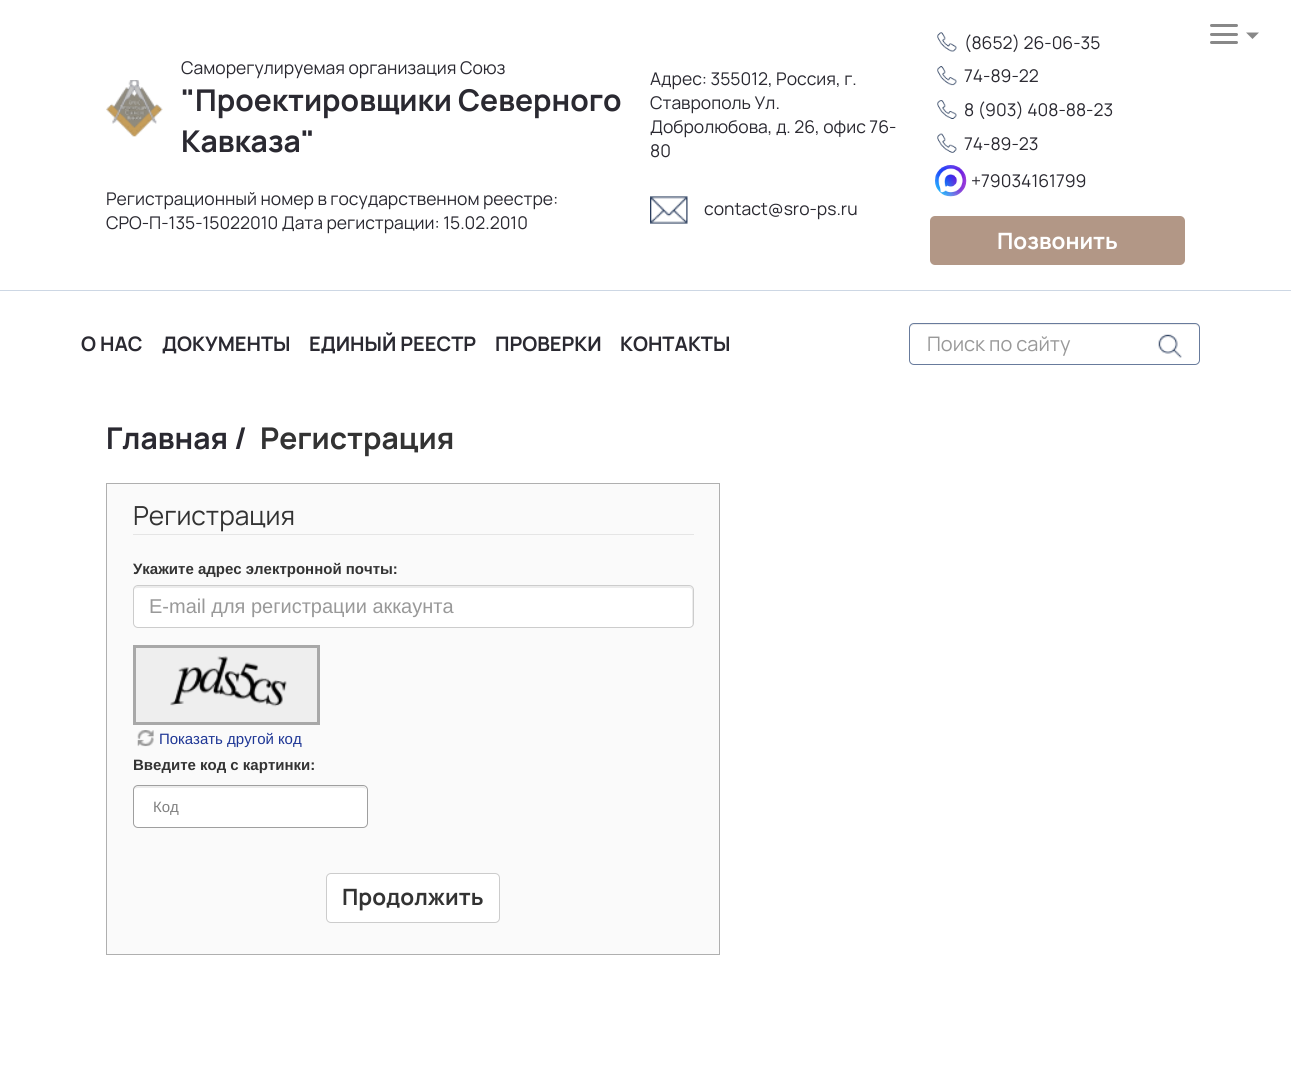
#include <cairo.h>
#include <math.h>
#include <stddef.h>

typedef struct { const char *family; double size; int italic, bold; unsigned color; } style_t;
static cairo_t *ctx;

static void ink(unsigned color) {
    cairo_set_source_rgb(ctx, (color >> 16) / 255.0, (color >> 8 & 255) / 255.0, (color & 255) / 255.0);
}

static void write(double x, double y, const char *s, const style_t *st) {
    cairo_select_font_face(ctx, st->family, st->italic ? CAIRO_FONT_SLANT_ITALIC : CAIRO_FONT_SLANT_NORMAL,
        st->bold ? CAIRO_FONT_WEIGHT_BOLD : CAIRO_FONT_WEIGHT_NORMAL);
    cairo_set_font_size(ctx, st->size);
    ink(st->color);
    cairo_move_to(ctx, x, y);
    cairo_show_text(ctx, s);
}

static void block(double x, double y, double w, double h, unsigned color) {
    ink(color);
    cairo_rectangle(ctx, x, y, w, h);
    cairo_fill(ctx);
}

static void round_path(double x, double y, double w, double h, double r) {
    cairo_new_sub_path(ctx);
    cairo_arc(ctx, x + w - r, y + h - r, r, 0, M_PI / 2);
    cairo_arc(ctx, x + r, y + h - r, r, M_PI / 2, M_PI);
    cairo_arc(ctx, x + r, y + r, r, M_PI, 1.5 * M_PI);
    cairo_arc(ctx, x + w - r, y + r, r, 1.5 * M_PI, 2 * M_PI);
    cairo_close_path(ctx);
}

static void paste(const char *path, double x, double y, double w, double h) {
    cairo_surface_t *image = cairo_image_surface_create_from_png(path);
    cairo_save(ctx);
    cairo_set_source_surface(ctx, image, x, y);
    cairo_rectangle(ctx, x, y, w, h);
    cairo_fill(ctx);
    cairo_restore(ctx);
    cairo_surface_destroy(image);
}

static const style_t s1 = {"Manrope", 17.5, 0, 0, 0x2a2931};
static const style_t s2 = {"Manrope", 30, 0, 1, 0x2a2931};
static const style_t s3 = {"Manrope", 22.5, 0, 1, 0xffffff};
static const style_t s4 = {"Manrope", 20, 0, 1, 0x2a2931};
static const style_t s5 = {"Manrope", 20, 0, 0, 0x999999};
static const style_t s6 = {"Manrope", 30, 0, 1, 0x333333};
static const style_t s7 = {"Manrope", 26.25, 0, 0, 0x333333};
static const style_t s8 = {"Liberation Sans", 15, 0, 1, 0x333333};
static const style_t s9 = {"Liberation Sans", 20, 0, 0, 0x999999};
static const style_t s10 = {"Liberation Sans", 15, 0, 0, 0x1e3695};
static const style_t s11 = {"Liberation Sans", 15, 0, 0, 0x818181};
static const style_t s12 = {"Manrope", 22.5, 0, 1, 0x333333};

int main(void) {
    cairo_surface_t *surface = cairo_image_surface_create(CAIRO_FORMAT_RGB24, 1291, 1065);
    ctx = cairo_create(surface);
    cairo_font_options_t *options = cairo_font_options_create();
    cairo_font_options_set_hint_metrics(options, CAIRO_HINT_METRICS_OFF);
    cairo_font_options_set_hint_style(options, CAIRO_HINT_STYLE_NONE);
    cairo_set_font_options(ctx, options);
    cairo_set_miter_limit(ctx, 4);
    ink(0xffffff);
    cairo_paint(ctx);
    block(0, 290, 1291, 1, 0xcdd7e4);
    paste("pic1.png", 106, 80, 57, 57);
    write(181, 74, "Саморегулируемая организация Союз", &s1);
    write(181, 111, "\"Проектировщики Северного", &s2);
    write(181, 152, "Кавказа\"", &s2);
    write(106, 205, "Регистрационный номер в государственном реестре:", &s1);
    write(106, 229, "СРО-П-135-15022010 Дата регистрации: 15.02.2010", &s1);
    write(650, 85, "Адрес: 355012, Россия, г.", &s1);
    write(650, 109, "Ставрополь Ул.", &s1);
    write(650, 133, "Добролюбова, д. 26, офис 76-", &s1);
    write(650, 157, "80", &s1);
    paste("pic2.png", 650, 196, 38, 28);
    write(704, 215, "contact@sro-ps.ru", &s1);
    paste("pic3.png", 937, 32, 20, 20);
    write(964, 49, "(8652) 26-06-35", &s1);
    paste("pic4.png", 937, 66, 20, 20);
    write(964, 82, "74-89-22", &s1);
    paste("pic5.png", 937, 100, 20, 19);
    write(964, 116, "8 (903) 408-88-23", &s1);
    paste("pic6.png", 937, 133, 20, 20);
    write(964, 150, "74-89-23", &s1);
    paste("pic7.png", 935, 165, 32, 32);
    write(971, 187, "+79034161799", &s1);
    ink(0xb29786);
    round_path(930, 216, 255, 49, 5);
    cairo_fill(ctx);
    write(997, 249, "Позвонить", &s3);
    ink(0x888888);
    round_path(1210, 24, 28, 3, 1.5);
    cairo_fill(ctx);
    round_path(1210, 33, 28, 3, 1.5);
    cairo_fill(ctx);
    round_path(1210, 41, 28, 3, 1.5);
    cairo_fill(ctx);
    cairo_new_path(ctx);
    cairo_move_to(ctx, 1246, 32.5);
    cairo_line_to(ctx, 1259, 32.5);
    cairo_line_to(ctx, 1252.5, 39);
    cairo_close_path(ctx);
    cairo_fill(ctx);
    write(81, 351, "О НАС", &s4);
    write(162, 351, "ДОКУМЕНТЫ", &s4);
    write(309, 351, "ЕДИНЫЙ РЕЕСТР", &s4);
    write(495, 351, "ПРОВЕРКИ", &s4);
    write(620, 351, "КОНТАКТЫ", &s4);
    ink(0xececec);
    cairo_new_path(ctx);
    cairo_move_to(ctx, 914, 325);
    cairo_line_to(ctx, 1195, 325);
    cairo_curve_to(ctx, 1197, 325, 1199, 327, 1199, 329);
    cairo_curve_to(ctx, 1199, 326, 1198, 324, 1195, 324);
    cairo_line_to(ctx, 914, 324);
    cairo_curve_to(ctx, 911, 324, 910, 326, 910, 329);
    cairo_curve_to(ctx, 910, 327, 912, 325, 914, 325);
    cairo_close_path(ctx);
    cairo_fill(ctx);
    round_path(909.5, 323.5, 290, 41, 4.5);
    ink(0x687b9c);
    cairo_set_line_width(ctx, 1);
    cairo_stroke(ctx);
    write(927, 351, "Поиск по сайту", &s5);
    paste("pic8.png", 1158, 334, 24, 24);
    write(106, 449, "Главная /", &s2);
    write(260, 449, "Регистрация", &s6);
    ink(0xfafafa);
    cairo_rectangle(ctx, 106.5, 483.5, 613, 471);
    cairo_fill_preserve(ctx);
    ink(0xafafaf);
    cairo_stroke(ctx);
    block(133, 534, 561, 1, 0xe5e5e5);
    write(133, 525, "Регистрация", &s7);
    write(133, 574, "Укажите адрес электронной почты:", &s8);
    ink(0xffffff);
    round_path(133, 585, 561, 43, 5);
    cairo_fill(ctx);
    ink(0xececec);
    cairo_new_path(ctx);
    cairo_move_to(ctx, 138, 588);
    cairo_line_to(ctx, 689, 588);
    cairo_curve_to(ctx, 691, 588, 692, 589, 692, 591);
    cairo_line_to(ctx, 692, 625);
    cairo_curve_to(ctx, 693, 624, 693, 623, 693, 622);
    cairo_line_to(ctx, 693, 590);
    cairo_curve_to(ctx, 693, 588, 691, 586, 689, 586);
    cairo_line_to(ctx, 138, 586);
    cairo_curve_to(ctx, 136, 586, 134, 588, 134, 590);
    cairo_line_to(ctx, 134, 591);
    cairo_curve_to(ctx, 134, 589, 135, 588, 138, 588);
    cairo_close_path(ctx);
    cairo_fill(ctx);
    round_path(133.5, 585.5, 560, 42, 4.5);
    ink(0xcccccc);
    cairo_stroke(ctx);
    write(149, 613, "E-mail для регистрации аккаунта", &s9);
    ink(0xeeeeee);
    cairo_rectangle(ctx, 134.5, 646.5, 184, 77);
    cairo_fill_preserve(ctx);
    ink(0xa8a8a8);
    cairo_set_line_width(ctx, 3);
    cairo_stroke(ctx);
    paste("pic9.png", 170, 656, 117, 51);
    paste("pic10.png", 137, 730, 17, 17);
    write(159, 744, "Показать другой код", &s10);
    write(133, 770, "Введите код с картинки:", &s8);
    ink(0xffffff);
    round_path(133, 785, 235, 43, 5);
    cairo_fill(ctx);
    ink(0xececec);
    cairo_new_path(ctx);
    cairo_move_to(ctx, 138, 788);
    cairo_line_to(ctx, 362, 788);
    cairo_curve_to(ctx, 365, 788, 366, 789, 366, 791);
    cairo_curve_to(ctx, 366, 788, 365, 786, 362, 786);
    cairo_line_to(ctx, 138, 786);
    cairo_curve_to(ctx, 135, 786, 134, 788, 134, 791);
    cairo_curve_to(ctx, 134, 789, 135, 788, 138, 788);
    cairo_close_path(ctx);
    cairo_fill(ctx);
    round_path(133.5, 785.5, 234, 42, 4.5);
    ink(0x9f9f9f);
    cairo_set_line_width(ctx, 1);
    cairo_stroke(ctx);
    write(153, 812, "Код", &s11);
    ink(0xffffff);
    round_path(326.5, 873.5, 173, 49, 4.5);
    cairo_fill_preserve(ctx);
    ink(0xcccccc);
    cairo_stroke(ctx);
    write(342, 905, "Продолжить", &s12);
    cairo_surface_write_to_png(surface, "screenshot.png");
    cairo_font_options_destroy(options);
    cairo_destroy(ctx);
    cairo_surface_destroy(surface);
    return 0;
}
